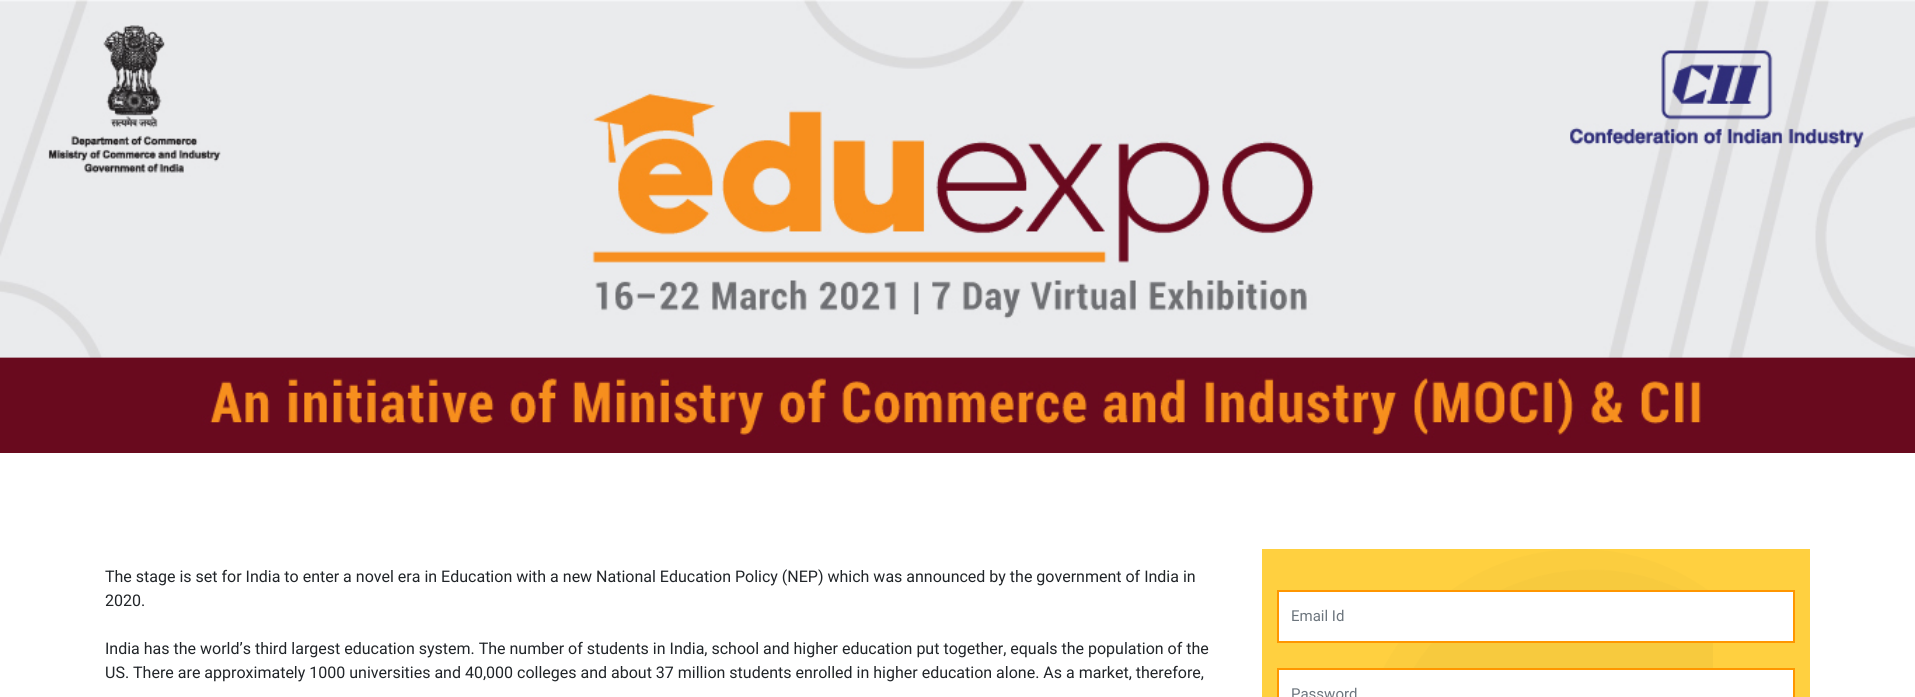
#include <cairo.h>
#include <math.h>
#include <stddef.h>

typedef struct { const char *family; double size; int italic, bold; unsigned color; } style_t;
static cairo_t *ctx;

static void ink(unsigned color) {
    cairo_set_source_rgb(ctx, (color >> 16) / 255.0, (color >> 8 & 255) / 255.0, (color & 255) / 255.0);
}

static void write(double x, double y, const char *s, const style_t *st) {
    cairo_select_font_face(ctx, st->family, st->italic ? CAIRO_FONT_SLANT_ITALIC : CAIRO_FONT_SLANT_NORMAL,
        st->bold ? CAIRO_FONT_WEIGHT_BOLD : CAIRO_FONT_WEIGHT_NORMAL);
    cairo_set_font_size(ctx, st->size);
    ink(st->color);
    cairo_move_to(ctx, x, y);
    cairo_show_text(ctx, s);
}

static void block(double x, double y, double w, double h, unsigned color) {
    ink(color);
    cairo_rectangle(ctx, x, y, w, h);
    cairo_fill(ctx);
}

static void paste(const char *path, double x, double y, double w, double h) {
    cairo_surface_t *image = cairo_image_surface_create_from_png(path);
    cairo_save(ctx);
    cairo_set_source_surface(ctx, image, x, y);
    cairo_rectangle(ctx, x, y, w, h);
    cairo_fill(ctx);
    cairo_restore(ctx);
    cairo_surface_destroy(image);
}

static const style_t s1 = {"Roboto", 16, 0, 0, 0x212529};
static const style_t s2 = {"Roboto", 15, 0, 0, 0x6c757d};

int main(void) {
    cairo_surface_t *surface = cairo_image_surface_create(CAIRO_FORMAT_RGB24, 1915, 697);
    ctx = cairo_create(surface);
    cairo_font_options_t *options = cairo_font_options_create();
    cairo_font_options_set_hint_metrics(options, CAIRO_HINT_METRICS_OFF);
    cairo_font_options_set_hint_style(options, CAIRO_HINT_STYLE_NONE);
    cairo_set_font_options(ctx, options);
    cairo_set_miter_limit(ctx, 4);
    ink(0xffffff);
    cairo_paint(ctx);
    block(1262, 549, 548, 148, 0xffd040);
    paste("pic1.png", 0, 0, 1915, 453);
    write(105, 582, "The stage is set for India to enter a novel era in Education with a new National Education Policy (NEP) which was announced by the government of India in", &s1);
    write(105, 606, "2020.", &s1);
    write(105, 654, "India has the world’s third largest education system. The number of students in India, school and higher education put together, equals the population of the", &s1);
    write(105, 678, "US. There are approximately 1000 universities and 40,000 colleges and about 37 million students enrolled in higher education alone. As a market, therefore,", &s1);
    paste("pic2.png", 1383, 549, 330, 119);
    ink(0xffffff);
    cairo_rectangle(ctx, 1278, 591, 516, 51);
    cairo_fill_preserve(ctx);
    ink(0xff9600);
    cairo_stroke(ctx);
    write(1291, 621, "Email Id", &s2);
    ink(0xffffff);
    cairo_rectangle(ctx, 1278, 669, 516, 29);
    cairo_fill_preserve(ctx);
    ink(0xff9600);
    cairo_stroke(ctx);
    write(1291, 699, "Password", &s2);
    cairo_surface_write_to_png(surface, "screenshot.png");
    cairo_font_options_destroy(options);
    cairo_destroy(ctx);
    cairo_surface_destroy(surface);
    return 0;
}
